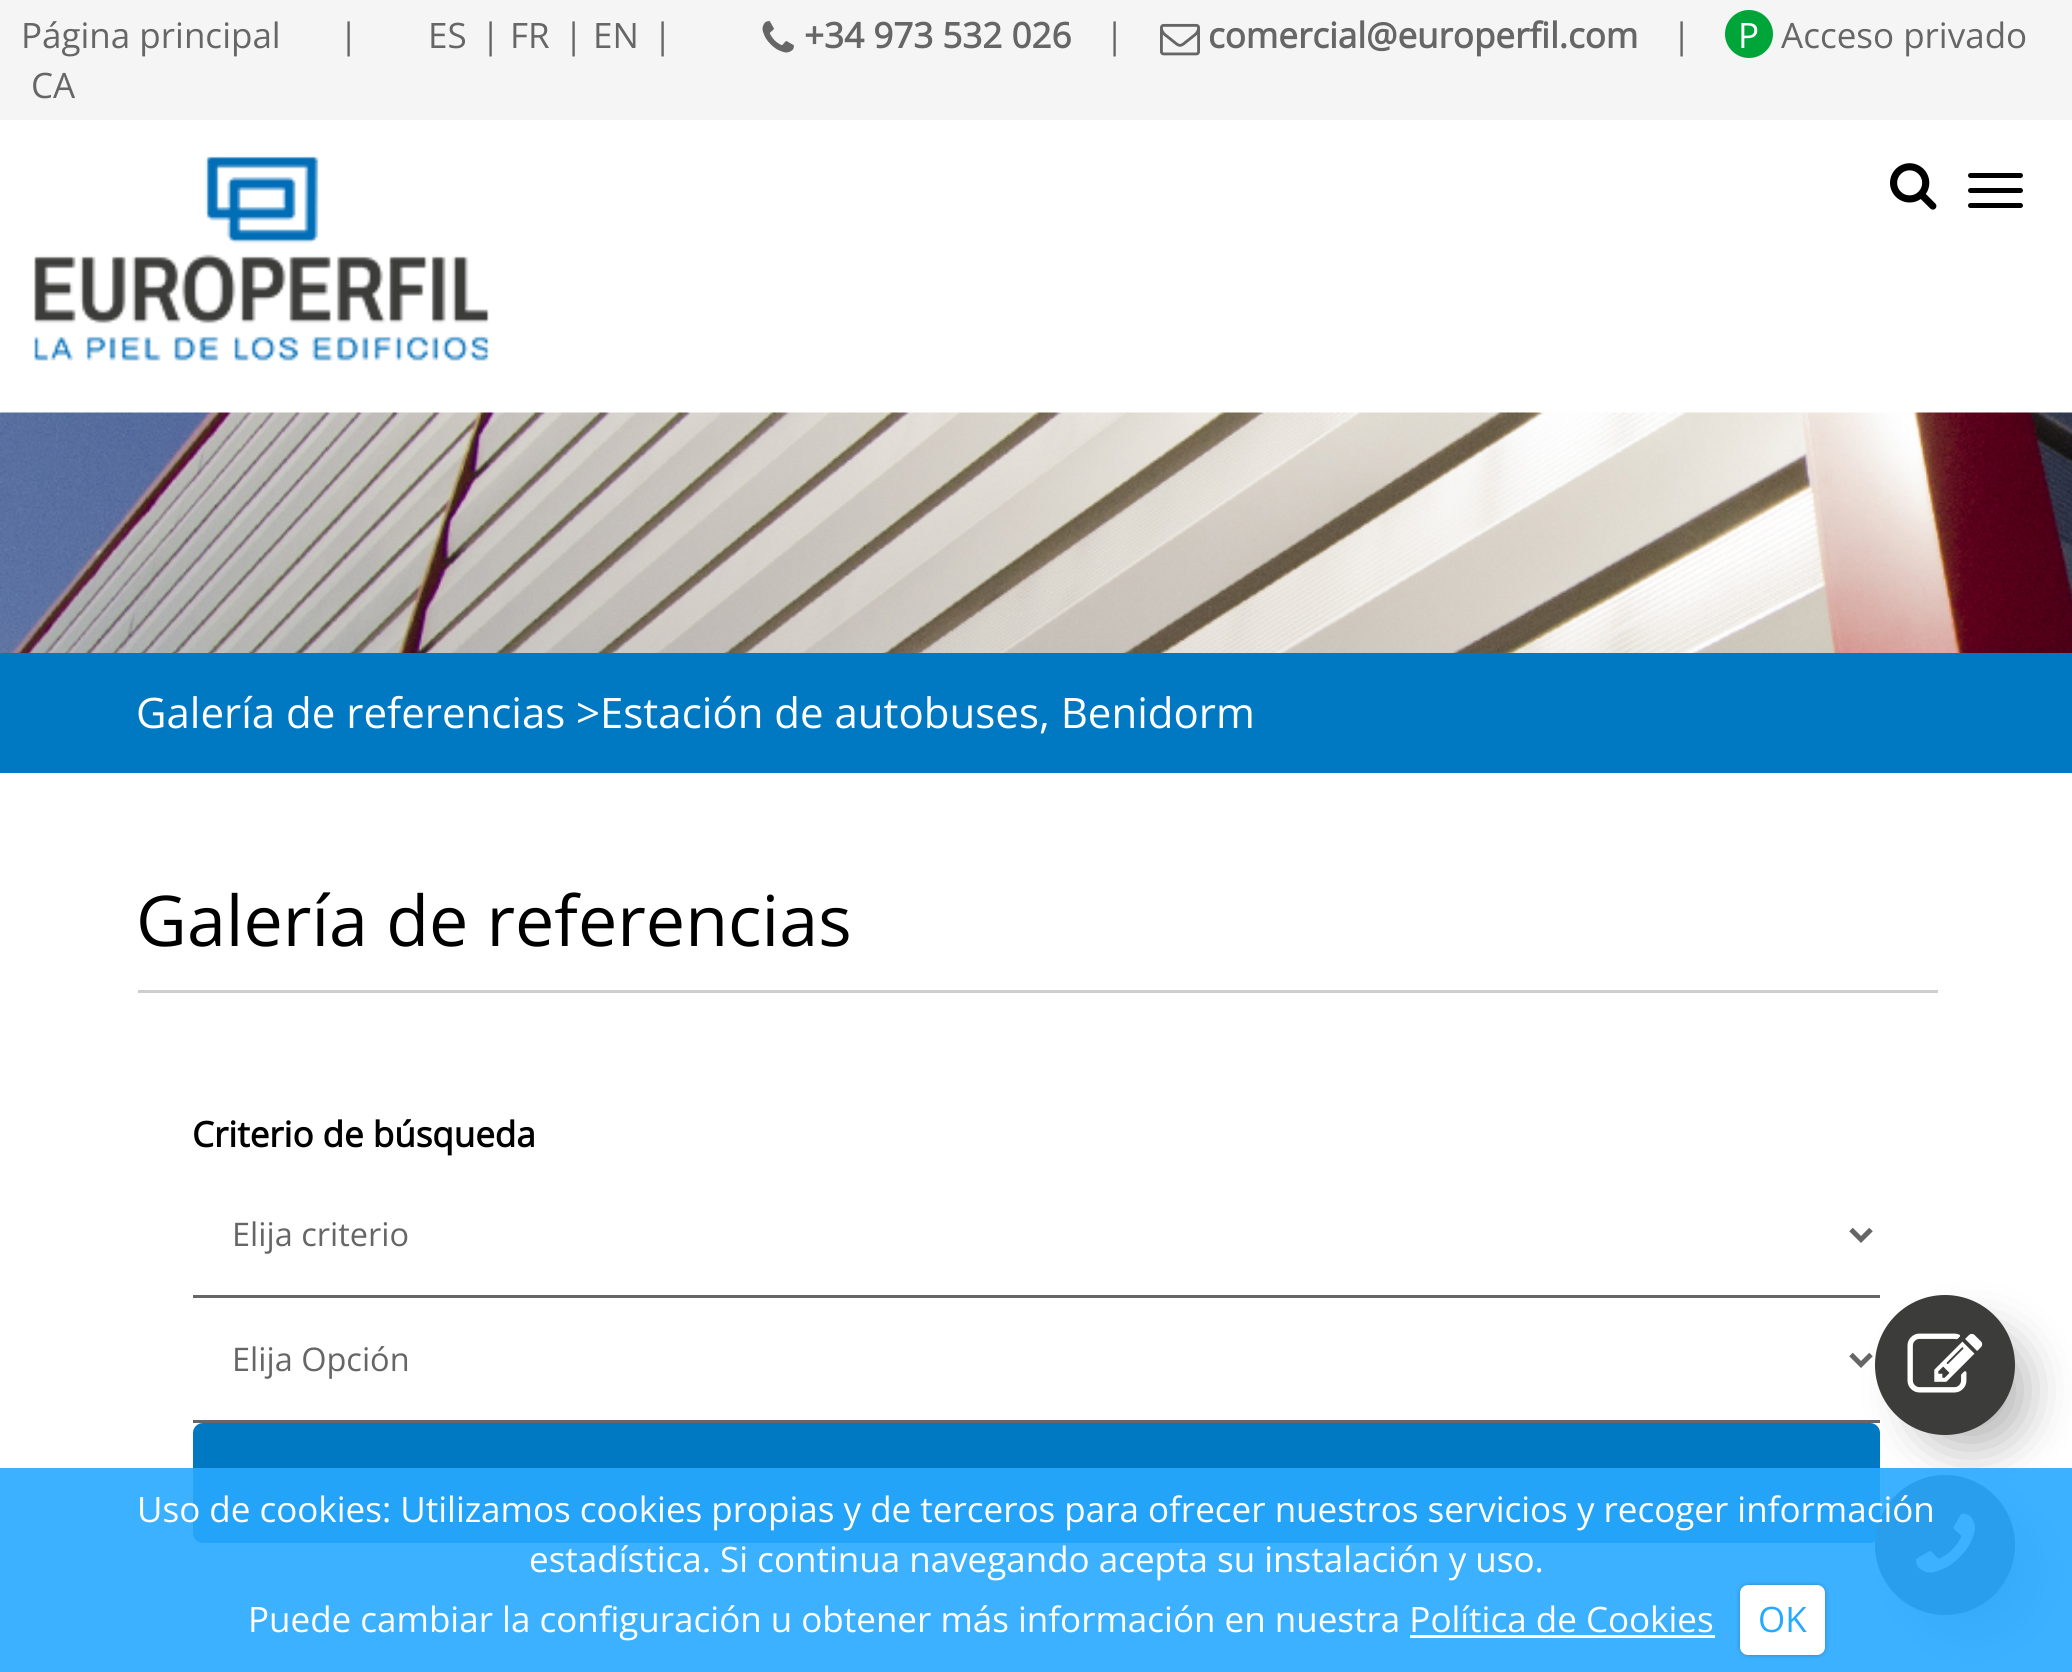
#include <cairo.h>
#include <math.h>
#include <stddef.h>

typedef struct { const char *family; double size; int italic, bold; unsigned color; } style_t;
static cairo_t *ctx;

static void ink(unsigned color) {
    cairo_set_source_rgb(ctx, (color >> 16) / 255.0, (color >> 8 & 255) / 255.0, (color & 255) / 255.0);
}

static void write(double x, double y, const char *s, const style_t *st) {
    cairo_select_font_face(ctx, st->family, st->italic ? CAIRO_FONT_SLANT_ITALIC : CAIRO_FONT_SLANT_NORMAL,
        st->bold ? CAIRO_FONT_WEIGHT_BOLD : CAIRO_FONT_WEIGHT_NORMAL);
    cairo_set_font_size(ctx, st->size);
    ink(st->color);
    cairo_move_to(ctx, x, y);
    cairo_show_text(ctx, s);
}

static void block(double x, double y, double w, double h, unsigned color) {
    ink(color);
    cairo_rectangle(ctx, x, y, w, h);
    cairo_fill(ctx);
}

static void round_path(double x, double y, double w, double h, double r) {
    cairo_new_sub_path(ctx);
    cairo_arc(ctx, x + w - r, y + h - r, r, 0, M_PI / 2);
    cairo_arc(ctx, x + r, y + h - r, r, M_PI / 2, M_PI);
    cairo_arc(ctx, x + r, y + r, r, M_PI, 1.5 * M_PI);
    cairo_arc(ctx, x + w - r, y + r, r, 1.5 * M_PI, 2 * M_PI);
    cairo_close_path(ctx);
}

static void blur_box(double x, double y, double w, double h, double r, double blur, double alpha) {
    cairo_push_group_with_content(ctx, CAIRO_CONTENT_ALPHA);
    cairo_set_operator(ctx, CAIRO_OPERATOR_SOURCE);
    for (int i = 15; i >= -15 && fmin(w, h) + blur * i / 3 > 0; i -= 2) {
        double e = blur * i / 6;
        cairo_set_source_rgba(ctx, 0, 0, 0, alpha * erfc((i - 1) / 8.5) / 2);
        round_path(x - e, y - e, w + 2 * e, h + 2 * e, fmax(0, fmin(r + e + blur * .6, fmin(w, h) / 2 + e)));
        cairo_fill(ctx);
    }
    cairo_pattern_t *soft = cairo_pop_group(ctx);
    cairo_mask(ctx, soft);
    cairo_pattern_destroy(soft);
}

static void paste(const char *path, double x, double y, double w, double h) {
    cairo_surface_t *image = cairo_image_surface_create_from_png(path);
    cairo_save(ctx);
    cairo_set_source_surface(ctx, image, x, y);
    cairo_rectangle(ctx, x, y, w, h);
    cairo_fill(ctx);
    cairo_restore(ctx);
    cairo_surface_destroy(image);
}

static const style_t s1 = {"Open Sans", 35, 0, 0, 0x666666};
static const style_t s2 = {"Open Sans", 35, 0, 1, 0x666666};
static const style_t s3 = {"Open Sans", 35, 0, 0, 0xffffff};
static const style_t s4 = {"Open Sans", 42, 0, 0, 0xffffff};
static const style_t s5 = {"Open Sans", 70, 0, 0, 0x000000};
static const style_t s6 = {"Open Sans", 35, 0, 1, 0x000000};
static const style_t s7 = {"Open Sans", 32.5, 0, 0, 0x666666};
static const style_t s8 = {"Open Sans", 35, 0, 0, 0x27a9ff};

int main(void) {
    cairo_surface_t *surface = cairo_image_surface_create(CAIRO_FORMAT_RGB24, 2072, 1672);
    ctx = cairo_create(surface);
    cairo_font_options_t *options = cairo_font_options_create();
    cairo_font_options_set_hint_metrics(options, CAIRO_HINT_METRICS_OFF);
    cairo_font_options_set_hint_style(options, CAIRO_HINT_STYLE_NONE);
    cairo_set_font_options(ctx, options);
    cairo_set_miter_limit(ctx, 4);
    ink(0xffffff);
    cairo_paint(ctx);
    block(0, 0, 2072, 120, 0xf5f5f5);
    write(21, 48, "Página principal", &s1);
    write(339, 48, "|", &s1);
    write(428, 48, "ES", &s1);
    write(481, 48, "|", &s1);
    write(510, 48, "FR", &s1);
    write(564, 48, "|", &s1);
    write(593, 48, "EN", &s1);
    write(653, 48, "|", &s1);
    write(31, 98, "CA", &s1);
    paste("pic1.png", 762, 21, 32, 32);
    write(804, 48, "+34 973 532 026", &s2);
    write(1105, 48, "|", &s1);
    paste("pic2.png", 1160, 23, 40, 33);
    write(1208, 48, "comercial@europerfil.com", &s2);
    write(1672, 48, "|", &s1);
    ink(0x00a539);
    cairo_new_path(ctx);
    cairo_arc(ctx, 1749, 34, 24, 0, 2 * M_PI);
    cairo_fill(ctx);
    write(1738, 48, "P", &s3);
    write(1781, 48, "Acceso privado", &s1);
    paste("pic3.png", 34, 156, 455, 205);
    ink(0x000000);
    round_path(1968, 173, 55, 5, 2.5);
    cairo_fill(ctx);
    round_path(1968, 188, 55, 5, 2.5);
    cairo_fill(ctx);
    round_path(1968, 203, 55, 5, 2.5);
    cairo_fill(ctx);
    paste("pic4.png", 1890, 163, 47, 47);
    paste("pic5.png", 0, 412, 2072, 241);
    block(0, 653, 2072, 120, 0x0079c2);
    write(136, 728, "Galería de referencias", &s4);
    write(576, 728, ">Estación de autobuses, Benidorm", &s4);
    block(138, 990, 1800, 3, 0xcecece);
    write(136, 946, "Galería de referencias", &s5);
    write(192, 1147, "Criterio de búsqueda", &s6);
    block(193, 1295, 1687, 3, 0x666666);
    cairo_new_path(ctx);
    cairo_move_to(ctx, 1851, 1229.5);
    cairo_line_to(ctx, 1861, 1239.5);
    cairo_line_to(ctx, 1871, 1229.5);
    cairo_set_line_width(ctx, 5);
    cairo_stroke(ctx);
    write(232, 1246, "Elija criterio", &s7);
    block(193, 1420, 1687, 3, 0x666666);
    cairo_new_path(ctx);
    cairo_move_to(ctx, 1851, 1354.5);
    cairo_line_to(ctx, 1861, 1364.5);
    cairo_line_to(ctx, 1871, 1354.5);
    cairo_stroke(ctx);
    write(232, 1371, "Elija Opción", &s7);
    ink(0x0079c2);
    round_path(193, 1423, 1687, 120, 10);
    cairo_fill(ctx);
    ink(0x000000);
    blur_box(1913, 1333, 115, 115, 57.5, 24, 0.28);
    blur_box(1913, 1513, 115, 115, 57.5, 24, 0.28);
    ink(0x3c3c3b);
    cairo_arc(ctx, 1945, 1545, 70, 0, 2 * M_PI);
    cairo_fill(ctx);
    paste("pic7.png", 1916, 1513, 59, 60);
    cairo_set_source_rgba(ctx, 0.153, 0.663, 1, 0.9);
    cairo_rectangle(ctx, 0, 1468, 2072, 204);
    cairo_fill(ctx);
    write(137, 1522, "Uso de cookies: Utilizamos cookies propias y de terceros para ofrecer nuestros servicios y recoger información", &s3);
    write(529, 1572, "estadística. Si continua navegando acepta su instalación y uso.", &s3);
    write(248, 1632, "Puede cambiar la configuración u obtener más información en nuestra Política de Cookies", &s3);
    ink(0x000000);
    blur_box(1740, 1585, 85, 70, 8, 2.5, 0.25);
    ink(0xffffff);
    round_path(1740, 1585, 85, 70, 8);
    cairo_fill(ctx);
    write(1758, 1632, "OK", &s8);
    block(1410, 1635, 305, 3, 0xffffff);
    ink(0x3c3c3b);
    cairo_new_path(ctx);
    cairo_arc(ctx, 1945, 1365, 70, 0, 2 * M_PI);
    cairo_fill(ctx);
    paste("pic6.png", 1907, 1333, 76, 60);
    cairo_surface_write_to_png(surface, "screenshot.png");
    cairo_font_options_destroy(options);
    cairo_destroy(ctx);
    cairo_surface_destroy(surface);
    return 0;
}
